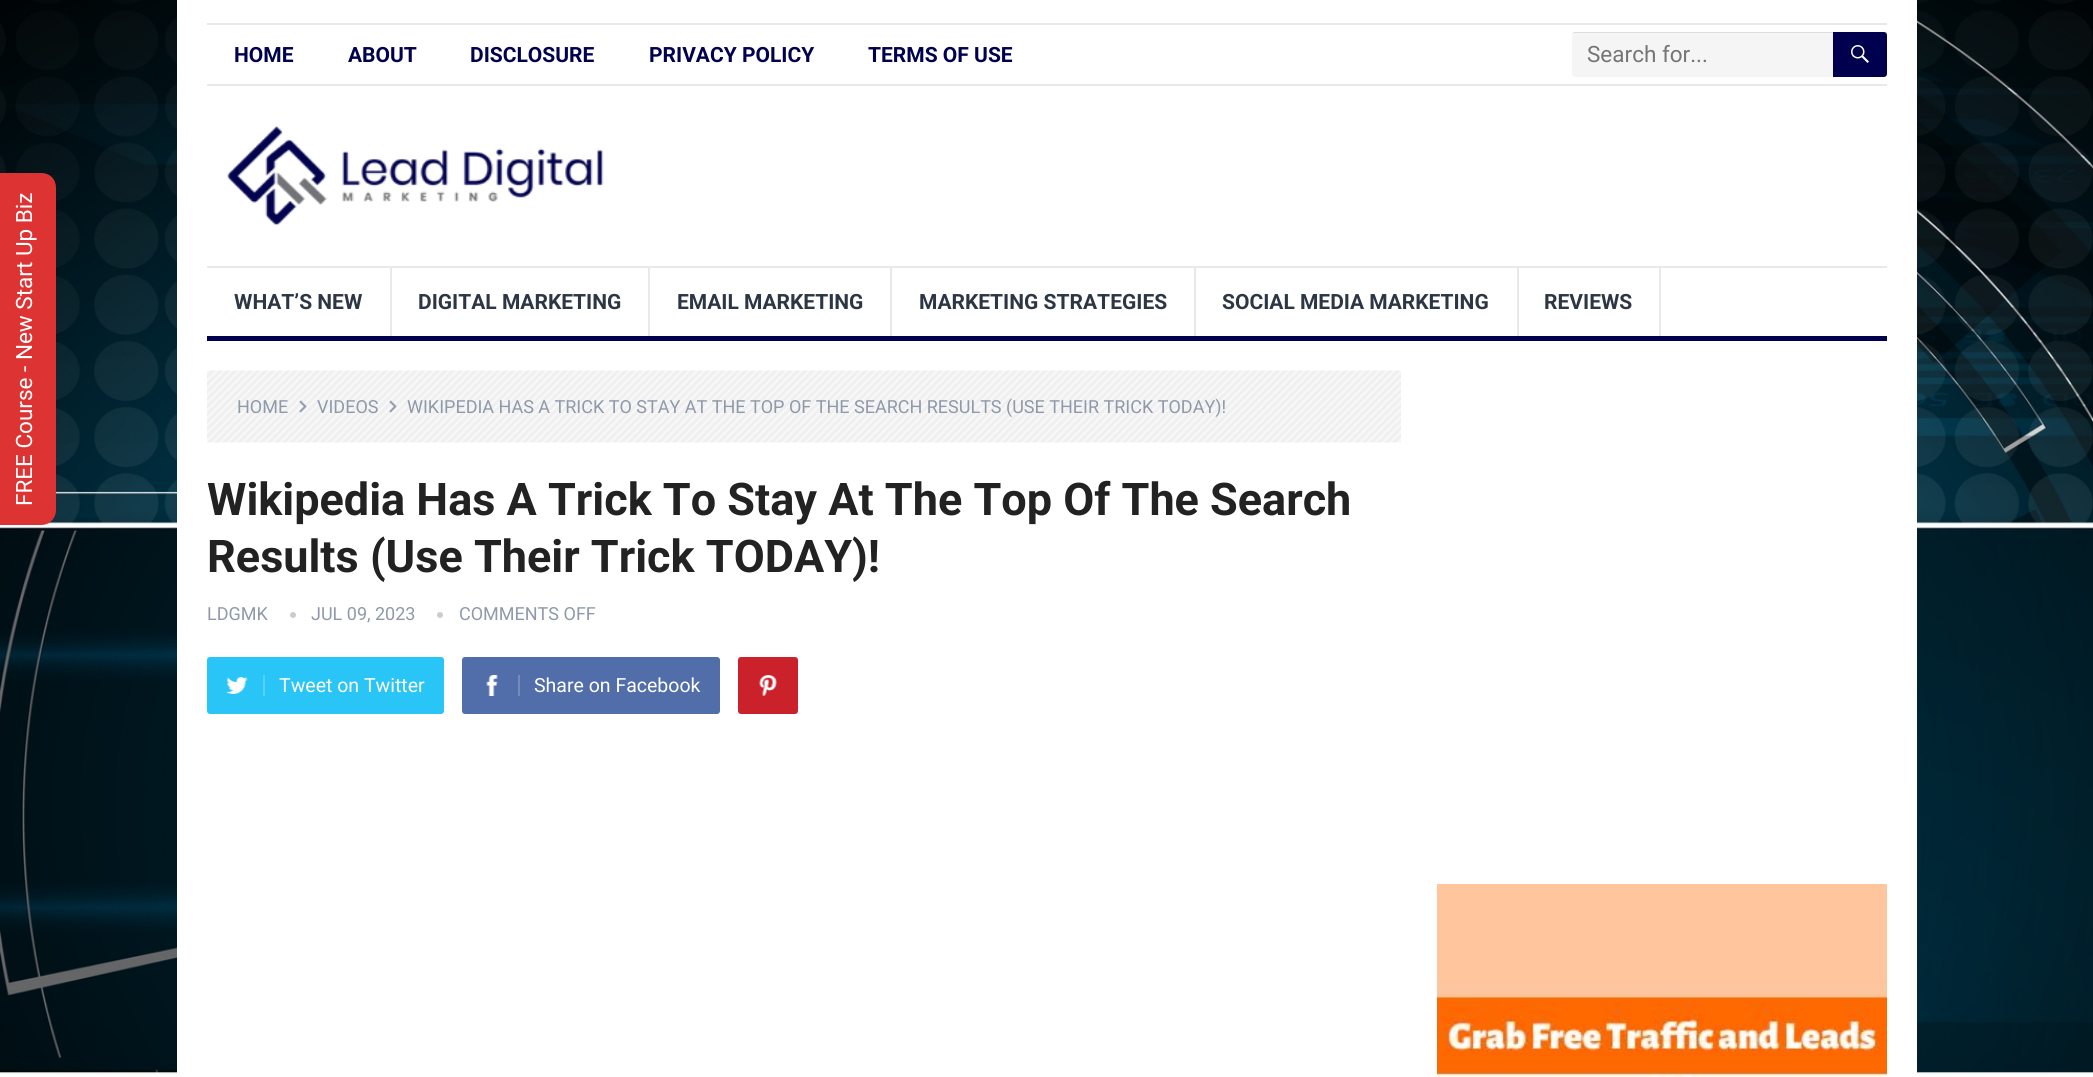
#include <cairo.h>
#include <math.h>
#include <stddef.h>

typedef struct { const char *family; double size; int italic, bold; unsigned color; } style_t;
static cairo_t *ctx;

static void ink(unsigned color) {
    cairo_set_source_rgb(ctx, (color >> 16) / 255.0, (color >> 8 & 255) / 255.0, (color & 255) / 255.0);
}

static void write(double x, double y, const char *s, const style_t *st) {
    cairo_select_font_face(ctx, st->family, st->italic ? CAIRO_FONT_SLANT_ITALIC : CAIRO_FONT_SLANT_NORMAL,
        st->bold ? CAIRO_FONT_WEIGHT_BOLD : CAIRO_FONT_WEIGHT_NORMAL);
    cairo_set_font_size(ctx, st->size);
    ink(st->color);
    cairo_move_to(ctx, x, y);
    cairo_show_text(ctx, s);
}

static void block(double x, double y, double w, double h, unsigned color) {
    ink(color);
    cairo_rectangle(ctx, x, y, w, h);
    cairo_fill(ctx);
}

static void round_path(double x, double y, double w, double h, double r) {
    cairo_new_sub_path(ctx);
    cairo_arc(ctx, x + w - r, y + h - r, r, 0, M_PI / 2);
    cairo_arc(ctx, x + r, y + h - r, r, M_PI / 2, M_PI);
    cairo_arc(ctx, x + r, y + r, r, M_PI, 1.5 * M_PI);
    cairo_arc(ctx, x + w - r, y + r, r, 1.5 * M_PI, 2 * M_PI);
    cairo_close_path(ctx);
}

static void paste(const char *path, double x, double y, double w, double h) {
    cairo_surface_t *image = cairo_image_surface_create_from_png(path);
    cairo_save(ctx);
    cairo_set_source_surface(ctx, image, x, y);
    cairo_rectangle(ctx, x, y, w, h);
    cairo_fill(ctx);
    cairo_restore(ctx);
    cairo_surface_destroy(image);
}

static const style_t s1 = {"Roboto", 22.5, 0, 0, 0xffffff};
static const style_t s2 = {"Roboto", 21, 0, 1, 0x00004e};
static const style_t s3 = {"Roboto", 22.5, 0, 0, 0x757575};
static const style_t s4 = {"Roboto", 21, 0, 1, 0x2c3644};
static const style_t s5 = {"Roboto", 18, 0, 0, 0x8e99a9};
static const style_t s6 = {"Roboto", 45, 0, 1, 0x222222};
static const style_t s7 = {"Roboto", 19.5, 0, 0, 0xffffff};

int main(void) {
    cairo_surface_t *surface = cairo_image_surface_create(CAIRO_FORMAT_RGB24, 2093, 1077);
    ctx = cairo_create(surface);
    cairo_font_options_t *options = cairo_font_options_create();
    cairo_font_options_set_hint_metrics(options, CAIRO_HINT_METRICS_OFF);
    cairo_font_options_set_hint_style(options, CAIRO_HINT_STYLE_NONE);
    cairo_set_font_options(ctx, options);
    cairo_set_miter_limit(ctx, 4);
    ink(0xffffff);
    cairo_paint(ctx);
    paste("pic1.png", 0, 0, 2093, 1077);
    ink(0xdd3333);
    cairo_new_path(ctx);
    cairo_move_to(ctx, -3, 525);
    cairo_line_to(ctx, -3, 173);
    cairo_line_to(ctx, 41, 173);
    cairo_curve_to(ctx, 50, 173, 56, 179, 56, 188);
    cairo_line_to(ctx, 56, 510);
    cairo_curve_to(ctx, 56, 518, 50, 525, 41, 525);
    cairo_close_path(ctx);
    cairo_fill(ctx);
    cairo_save(ctx);
    cairo_translate(ctx, 32, 506);
    cairo_rotate(ctx, -90 * M_PI / 180);
    write(0, 0, "FREE Course - New Start Up Biz", &s1);
    cairo_restore(ctx);
    block(177, 0, 1740, 1077, 0xffffff);
    block(207, 23, 1680, 2, 0xe9e9e9);
    block(207, 84, 1680, 2, 0xe9e9e9);
    write(234, 62, "HOME", &s2);
    write(348, 62, "ABOUT", &s2);
    write(470, 62, "DISCLOSURE", &s2);
    write(649, 62, "PRIVACY POLICY", &s2);
    write(868, 62, "TERMS OF USE", &s2);
    ink(0xf5f5f5);
    cairo_new_path(ctx);
    cairo_move_to(ctx, 1575, 32);
    cairo_line_to(ctx, 1887, 32);
    cairo_line_to(ctx, 1887, 77);
    cairo_line_to(ctx, 1575, 77);
    cairo_curve_to(ctx, 1573.5, 77, 1572, 75.5, 1572, 74);
    cairo_line_to(ctx, 1572, 35);
    cairo_curve_to(ctx, 1572, 33.5, 1573.5, 32, 1575, 32);
    cairo_close_path(ctx);
    cairo_fill(ctx);
    ink(0xdddddd);
    cairo_new_path(ctx);
    cairo_move_to(ctx, 1575, 33);
    cairo_line_to(ctx, 1887, 33);
    cairo_line_to(ctx, 1887, 32);
    cairo_line_to(ctx, 1575, 32);
    cairo_curve_to(ctx, 1573, 32, 1572, 34, 1572, 36);
    cairo_curve_to(ctx, 1572, 34, 1573, 33, 1575, 33);
    cairo_close_path(ctx);
    cairo_fill(ctx);
    write(1587, 62, "Search for...", &s3);
    ink(0x00004e);
    cairo_new_path(ctx);
    cairo_move_to(ctx, 1833, 32);
    cairo_line_to(ctx, 1884, 32);
    cairo_curve_to(ctx, 1885.5, 32, 1887, 33.5, 1887, 35);
    cairo_line_to(ctx, 1887, 74);
    cairo_curve_to(ctx, 1887, 75.5, 1885.5, 77, 1884, 77);
    cairo_line_to(ctx, 1833, 77);
    cairo_close_path(ctx);
    cairo_fill(ctx);
    paste("pic2.png", 1851, 45, 18, 18);
    paste("pic3.png", 227, 126, 377, 100);
    block(207, 266, 1680, 2, 0xe9e9e9);
    block(207, 336, 1680, 5, 0x00004e);
    block(390, 267, 2, 69, 0xe9e9e9);
    write(234, 309, "WHAT’S NEW", &s4);
    block(648, 267, 2, 69, 0xe9e9e9);
    write(418, 309, "DIGITAL MARKETING", &s4);
    block(890, 267, 2, 69, 0xe9e9e9);
    write(677, 309, "EMAIL MARKETING", &s4);
    block(1194, 267, 2, 69, 0xe9e9e9);
    write(919, 309, "MARKETING STRATEGIES", &s4);
    block(1517, 267, 2, 69, 0xe9e9e9);
    write(1222, 309, "SOCIAL MEDIA MARKETING", &s4);
    block(1659, 267, 2, 69, 0xe9e9e9);
    write(1544, 309, "REVIEWS", &s4);
    paste("pic4.png", 207, 370, 1194, 73);
    write(237, 413, "HOME", &s5);
    paste("pic5.png", 299, 400, 8, 13);
    write(317, 413, "VIDEOS", &s5);
    paste("pic6.png", 389, 400, 8, 13);
    write(407, 413, "WIKIPEDIA HAS A TRICK TO STAY AT THE TOP OF THE SEARCH RESULTS (USE THEIR TRICK TODAY)!", &s5);
    write(207, 515, "Wikipedia Has A Trick To Stay At The Top Of The Search", &s6);
    write(207, 572, "Results (Use Their Trick TODAY)!", &s6);
    write(207, 620, "LDGMK", &s5);
    ink(0xcccccc);
    cairo_new_path(ctx);
    cairo_arc(ctx, 293, 615, 3, 0, 2 * M_PI);
    cairo_fill(ctx);
    write(311, 620, "JUL 09, 2023", &s5);
    ink(0xcccccc);
    cairo_new_path(ctx);
    cairo_arc(ctx, 440, 615, 3, 0, 2 * M_PI);
    cairo_fill(ctx);
    write(459, 620, "COMMENTS OFF", &s5);
    ink(0x29c5f6);
    round_path(207, 657, 237, 57, 3);
    cairo_fill(ctx);
    paste("pic7.png", 226, 677, 22, 17);
    block(263, 675, 2, 21, 0x54d1f8);
    write(279, 692, "Tweet on Twitter", &s7);
    ink(0x516eab);
    round_path(462, 657, 258, 57, 3);
    cairo_fill(ctx);
    paste("pic8.png", 486, 675, 12, 21);
    block(518, 675, 2, 21, 0x748bbc);
    write(534, 692, "Share on Facebook", &s7);
    ink(0xca212a);
    round_path(738, 657, 60, 57, 3);
    cairo_fill(ctx);
    paste("pic9.png", 759, 675, 18, 21);
    paste("pic10.png", 1437, 884, 450, 193);
    cairo_surface_write_to_png(surface, "screenshot.png");
    cairo_font_options_destroy(options);
    cairo_destroy(ctx);
    cairo_surface_destroy(surface);
    return 0;
}
